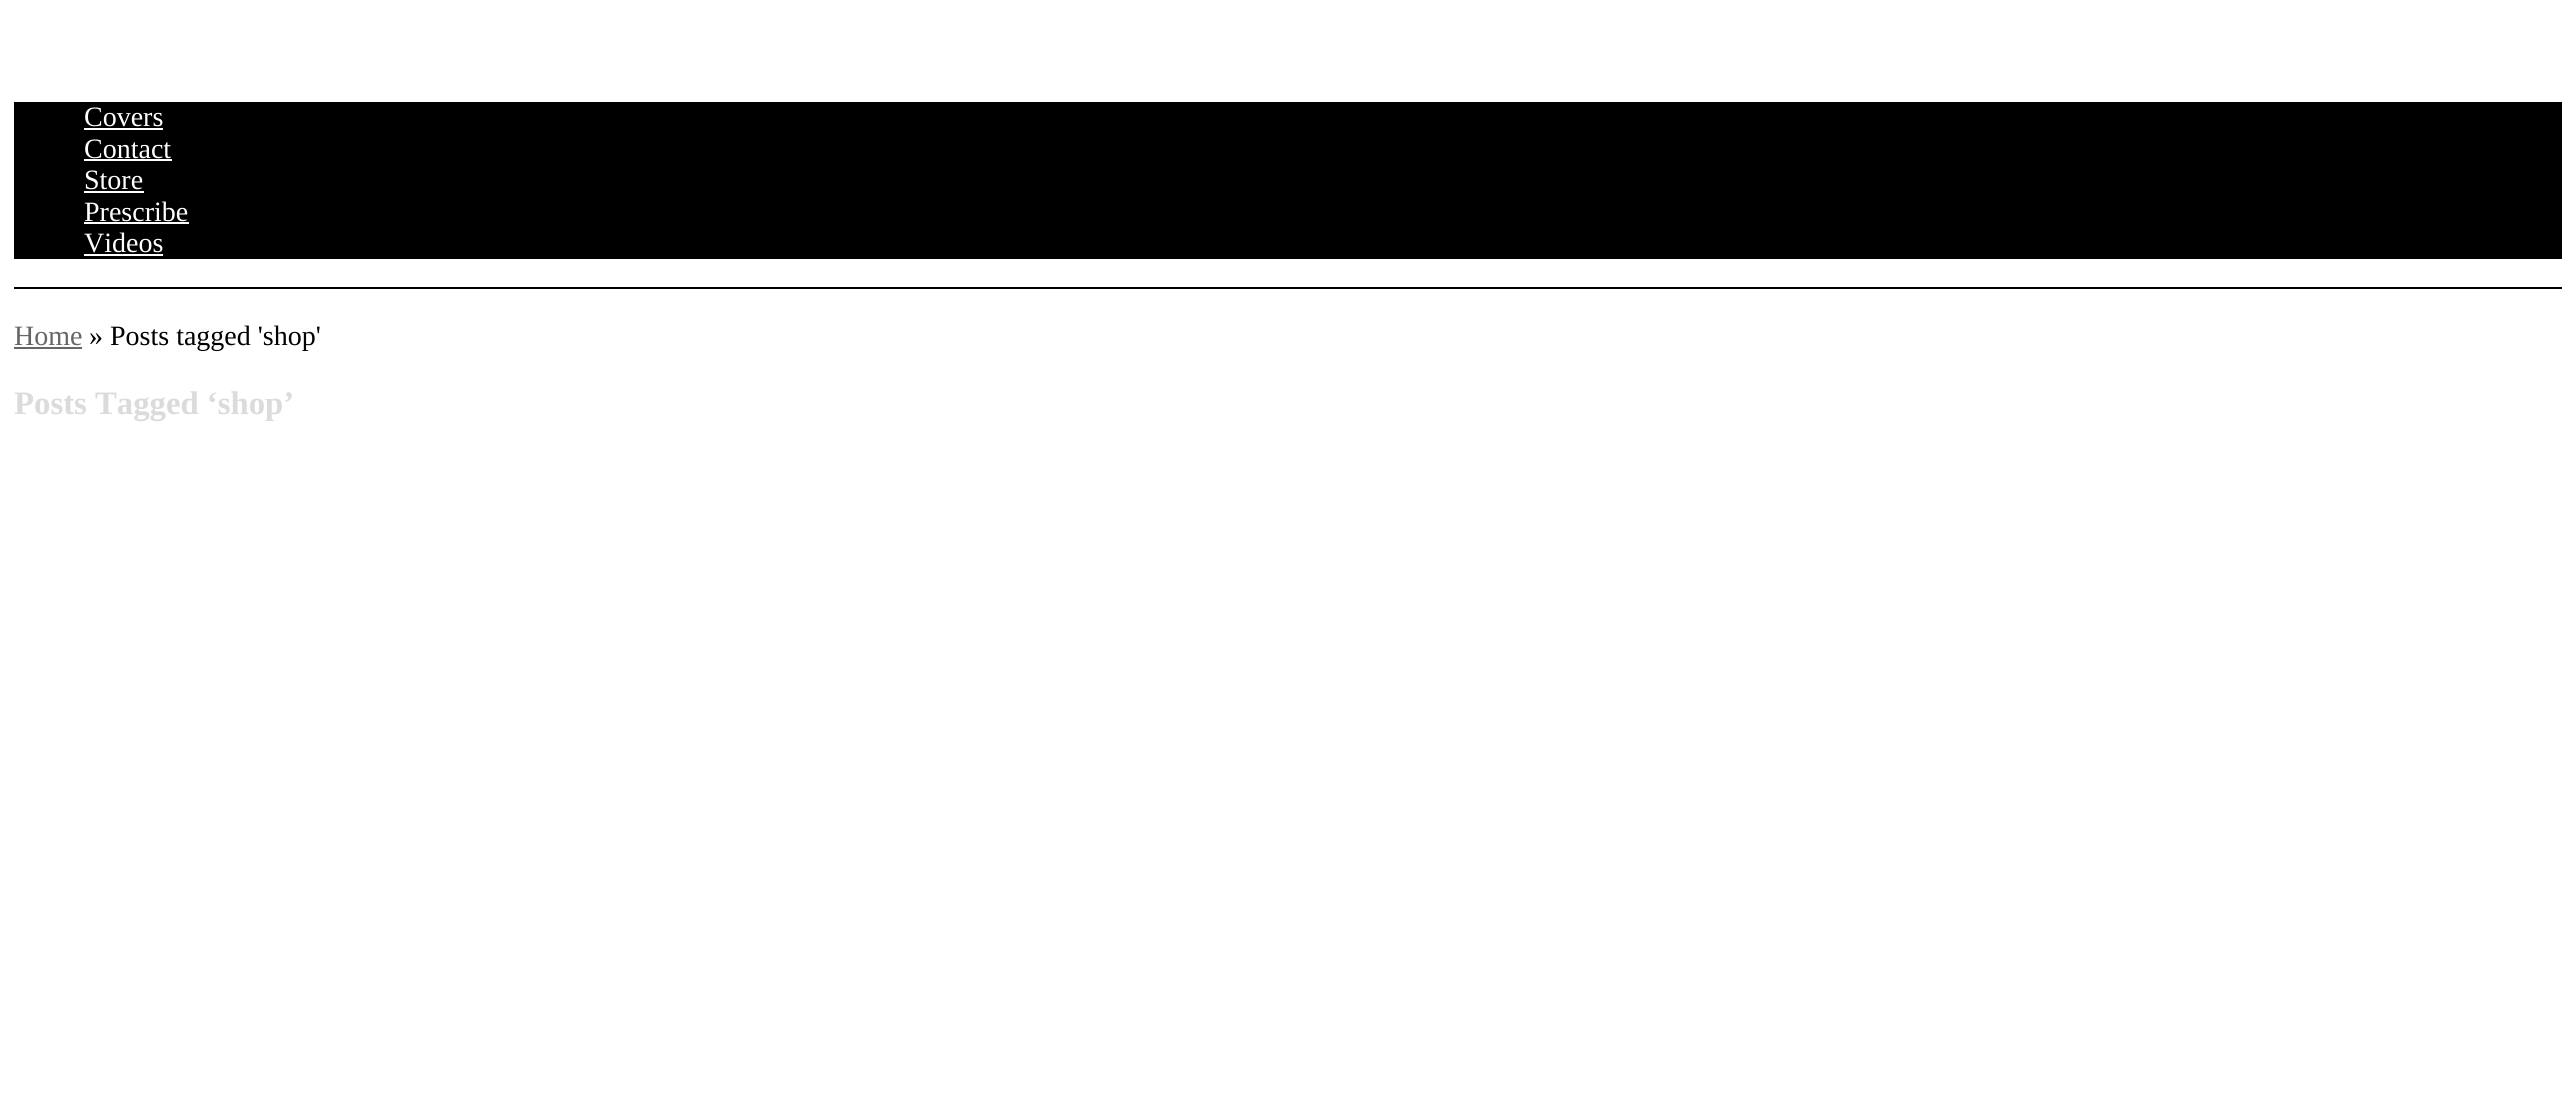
#include <cairo.h>
#include <math.h>
#include <stddef.h>

typedef struct { const char *family; double size; int italic, bold; unsigned color; } style_t;
static cairo_t *ctx;

static void ink(unsigned color) {
    cairo_set_source_rgb(ctx, (color >> 16) / 255.0, (color >> 8 & 255) / 255.0, (color & 255) / 255.0);
}

static void write(double x, double y, const char *s, const style_t *st) {
    cairo_select_font_face(ctx, st->family, st->italic ? CAIRO_FONT_SLANT_ITALIC : CAIRO_FONT_SLANT_NORMAL,
        st->bold ? CAIRO_FONT_WEIGHT_BOLD : CAIRO_FONT_WEIGHT_NORMAL);
    cairo_set_font_size(ctx, st->size);
    ink(st->color);
    cairo_move_to(ctx, x, y);
    cairo_show_text(ctx, s);
}

static void block(double x, double y, double w, double h, unsigned color) {
    ink(color);
    cairo_rectangle(ctx, x, y, w, h);
    cairo_fill(ctx);
}

static const style_t s1 = {"Liberation Serif", 28, 0, 0, 0xffffff};
static const style_t s2 = {"Liberation Serif", 28, 0, 0, 0x666666};
static const style_t s3 = {"Liberation Serif", 28, 0, 0, 0x000000};
static const style_t s4 = {"Liberation Serif", 32.75, 0, 1, 0xdbdbdb};

int main(void) {
    cairo_surface_t *surface = cairo_image_surface_create(CAIRO_FORMAT_RGB24, 2575, 1107);
    ctx = cairo_create(surface);
    cairo_font_options_t *options = cairo_font_options_create();
    cairo_font_options_set_hint_metrics(options, CAIRO_HINT_METRICS_OFF);
    cairo_font_options_set_hint_style(options, CAIRO_HINT_STYLE_NONE);
    cairo_set_font_options(ctx, options);
    cairo_set_miter_limit(ctx, 4);
    ink(0xffffff);
    cairo_paint(ctx);
    block(14, 287, 2548, 2, 0x000000);
    block(14, 102, 2548, 157, 0x000000);
    write(84, 126, "Covers", &s1);
    block(84, 128, 79, 2, 0xffffff);
    write(84, 158, "Contact", &s1);
    block(84, 159, 88, 2, 0xffffff);
    write(84, 189, "Store", &s1);
    block(84, 191, 60, 2, 0xffffff);
    write(84, 221, "Prescribe", &s1);
    block(84, 222, 105, 2, 0xffffff);
    write(84, 252, "Videos", &s1);
    block(84, 254, 79, 2, 0xffffff);
    write(14, 345, "Home", &s2);
    block(14, 347, 68, 2, 0x666666);
    write(89, 345, "» Posts tagged 'shop'", &s3);
    write(14, 414, "Posts Tagged ‘shop’", &s4);
    cairo_surface_write_to_png(surface, "screenshot.png");
    cairo_font_options_destroy(options);
    cairo_destroy(ctx);
    cairo_surface_destroy(surface);
    return 0;
}
